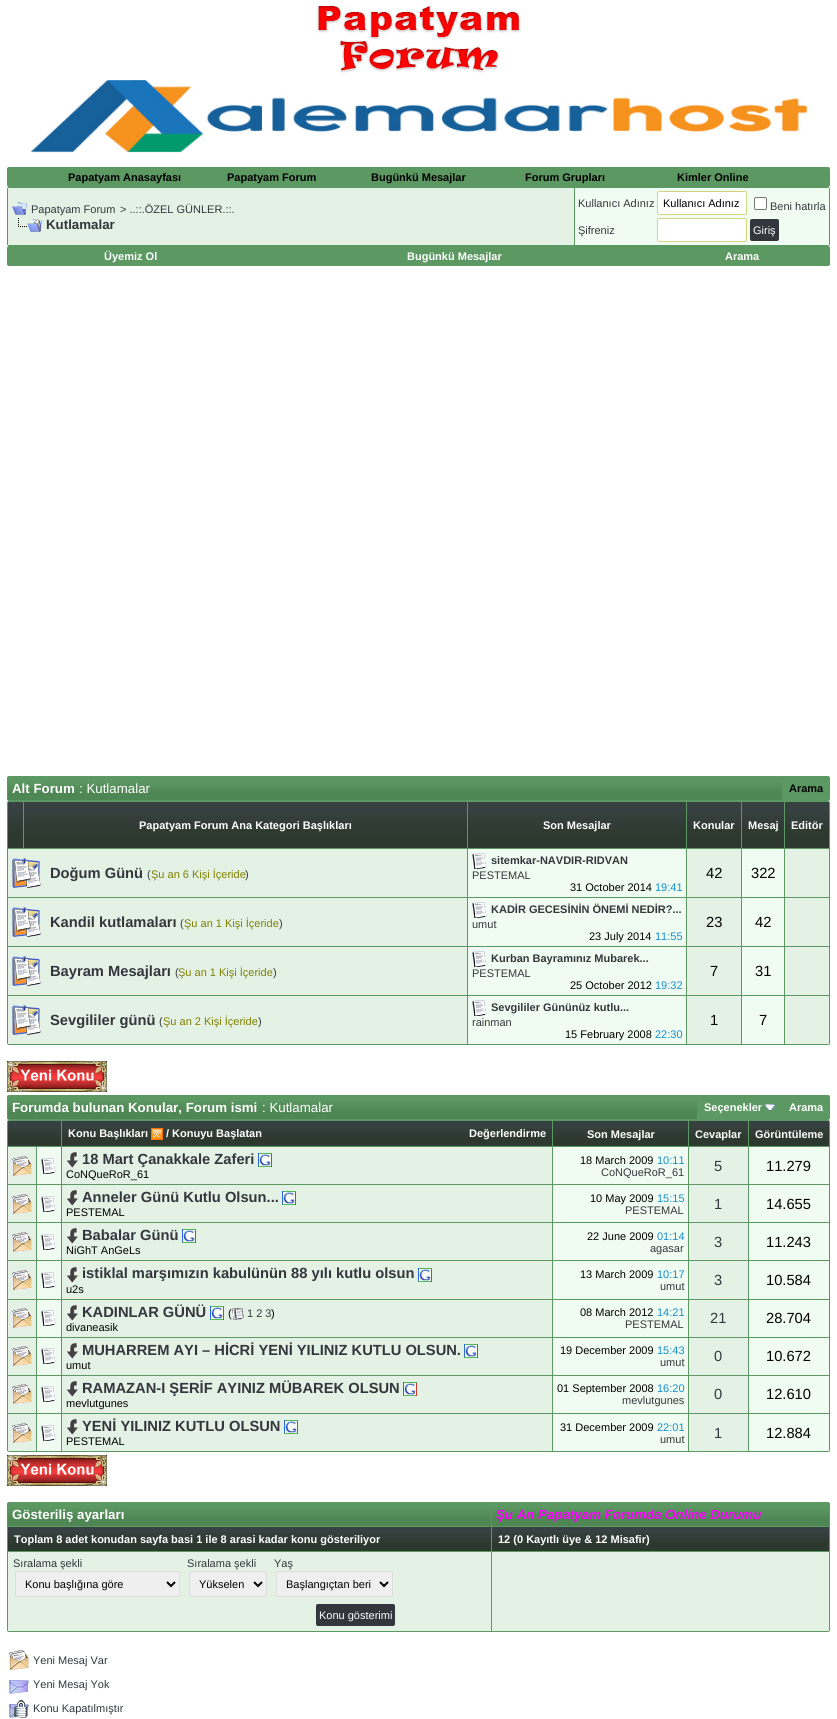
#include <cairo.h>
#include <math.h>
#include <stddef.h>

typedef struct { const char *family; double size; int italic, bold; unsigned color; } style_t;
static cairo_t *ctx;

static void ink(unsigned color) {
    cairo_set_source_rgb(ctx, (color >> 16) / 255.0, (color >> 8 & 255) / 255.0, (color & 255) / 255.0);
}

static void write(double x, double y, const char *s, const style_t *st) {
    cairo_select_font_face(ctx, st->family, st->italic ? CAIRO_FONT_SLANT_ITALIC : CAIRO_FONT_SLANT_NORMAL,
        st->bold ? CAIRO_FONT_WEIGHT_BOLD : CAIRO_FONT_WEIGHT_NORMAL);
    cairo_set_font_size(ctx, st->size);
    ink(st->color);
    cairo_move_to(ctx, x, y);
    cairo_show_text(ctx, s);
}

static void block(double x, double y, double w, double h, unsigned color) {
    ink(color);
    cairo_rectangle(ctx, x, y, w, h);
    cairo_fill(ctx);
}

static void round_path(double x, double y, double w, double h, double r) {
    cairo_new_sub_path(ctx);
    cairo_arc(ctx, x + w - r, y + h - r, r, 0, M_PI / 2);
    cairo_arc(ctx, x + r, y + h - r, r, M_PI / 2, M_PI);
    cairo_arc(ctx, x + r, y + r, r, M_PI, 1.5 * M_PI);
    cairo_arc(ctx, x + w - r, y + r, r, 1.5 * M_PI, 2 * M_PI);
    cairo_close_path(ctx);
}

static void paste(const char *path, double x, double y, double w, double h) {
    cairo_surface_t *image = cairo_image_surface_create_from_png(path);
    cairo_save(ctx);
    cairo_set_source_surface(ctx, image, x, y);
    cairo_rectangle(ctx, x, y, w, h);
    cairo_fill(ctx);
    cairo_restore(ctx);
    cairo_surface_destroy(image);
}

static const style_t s1 = {"Liberation Sans", 11, 0, 1, 0x000000};
static const style_t s2 = {"Liberation Sans", 11, 0, 0, 0x33373d};
static const style_t s3 = {"Liberation Sans", 13.3, 0, 1, 0x33373d};
static const style_t s4 = {"Liberation Sans", 11, 0, 0, 0x000000};
static const style_t s5 = {"Liberation Sans", 11, 0, 0, 0xffffff};
static const style_t s6 = {"Liberation Sans", 11, 0, 1, 0xffffff};
static const style_t s7 = {"Liberation Sans", 13.3, 0, 1, 0xffffff};
static const style_t s8 = {"Liberation Sans", 13.3, 0, 0, 0xffffff};
static const style_t s9 = {"Liberation Sans", 14.7, 0, 1, 0x33373d};
static const style_t s10 = {"Liberation Sans", 11, 0, 0, 0x808000};
static const style_t s11 = {"Liberation Sans", 11, 0, 1, 0x33373d};
static const style_t s12 = {"Liberation Sans", 11, 0, 0, 0x1390cf};
static const style_t s13 = {"Liberation Sans", 14.7, 0, 0, 0x000000};
static const style_t s14 = {"Liberation Sans", 14.7, 0, 0, 0x33373d};
static const style_t s15 = {"Liberation Sans", 13.3, 1, 1, 0xff00ff};

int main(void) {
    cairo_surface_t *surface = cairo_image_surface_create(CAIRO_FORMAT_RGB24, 837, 1719);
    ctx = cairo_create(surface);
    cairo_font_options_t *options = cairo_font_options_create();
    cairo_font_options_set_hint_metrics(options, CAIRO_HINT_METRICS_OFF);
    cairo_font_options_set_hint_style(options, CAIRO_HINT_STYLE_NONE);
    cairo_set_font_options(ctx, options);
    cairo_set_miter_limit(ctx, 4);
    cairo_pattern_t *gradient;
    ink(0xffffff);
    cairo_paint(ctx);
    paste("pic1.png", 316, 5, 205, 68);
    paste("pic2.png", 30, 80, 778, 73);
    ink(0x5c9862);
    round_path(7, 167, 823, 20, 2);
    cairo_fill(ctx);
    write(68, 181, "Papatyam Anasayfası", &s1);
    write(227, 181, "Papatyam Forum", &s1);
    write(371, 181, "Bugünkü Mesajlar", &s1);
    write(525, 181, "Forum Grupları", &s1);
    write(677, 181, "Kimler Online", &s1);
    ink(0x5c9862);
    round_path(7, 187, 823, 59, 2);
    cairo_fill(ctx);
    block(8, 188, 566, 57, 0xe4f1e5);
    paste("pic3.png", 12, 202, 15, 13);
    write(31, 213, "Papatyam Forum", &s2);
    write(120, 213, "> ..::.ÖZEL GÜNLER.::.", &s2);
    paste("pic4.png", 18, 218, 24, 14);
    write(46, 229, "Kutlamalar", &s3);
    block(575, 188, 254, 57, 0xf0fbf1);
    write(578, 207, "Kullanıcı Adınız", &s2);
    ink(0xffffff);
    round_path(657.5, 191.5, 89, 23, 1.5);
    cairo_fill_preserve(ctx);
    ink(0xd5d57f);
    cairo_set_line_width(ctx, 1);
    cairo_stroke(ctx);
    write(663, 207, "Kullanıcı Adınız", &s4);
    ink(0xffffff);
    round_path(754.5, 197.5, 12, 12, 1.5);
    cairo_fill_preserve(ctx);
    ink(0x767676);
    cairo_stroke(ctx);
    write(770, 210, "Beni hatırla", &s2);
    write(578, 234, "Şifreniz", &s2);
    ink(0xffffff);
    round_path(657.5, 218.5, 89, 23, 1.5);
    cairo_fill_preserve(ctx);
    ink(0xd5d57f);
    cairo_stroke(ctx);
    ink(0x33373d);
    round_path(750, 219, 29, 22, 2);
    cairo_fill(ctx);
    write(753, 234, "Giriş", &s5);
    ink(0x5c9862);
    round_path(7, 246, 823, 20, 2);
    cairo_fill(ctx);
    write(104, 260, "Üyemiz Ol", &s6);
    write(407, 260, "Bugünkü Mesajlar", &s6);
    write(725, 260, "Arama", &s6);
    ink(0x5c9862);
    round_path(7, 776, 823, 25, 2);
    cairo_fill(ctx);
    gradient = cairo_pattern_create_linear(395, 777, 395, 800);
    cairo_pattern_add_color_stop_rgba(gradient, 0.15, 0.361, 0.596, 0.384, 1);
    cairo_pattern_add_color_stop_rgba(gradient, 0.72, 0.306, 0.525, 0.329, 1);
    cairo_set_source(ctx, gradient);
    cairo_pattern_destroy(gradient);
    cairo_rectangle(ctx, 8, 782, 774, 18);
    cairo_fill(ctx);
    write(12, 793, "Alt Forum", &s7);
    write(79, 793, ": Kutlamalar", &s8);
    write(789, 792, "Arama", &s1);
    ink(0x5c9862);
    round_path(7, 801, 823, 244, 2);
    cairo_fill(ctx);
    gradient = cairo_pattern_create_linear(16, 802, 15, 848);
    cairo_pattern_add_color_stop_rgba(gradient, 0.15, 0.216, 0.255, 0.255, 1);
    cairo_pattern_add_color_stop_rgba(gradient, 0.72, 0.176, 0.22, 0.18, 1);
    cairo_set_source(ctx, gradient);
    cairo_pattern_destroy(gradient);
    cairo_rectangle(ctx, 8, 802, 15, 46);
    cairo_fill(ctx);
    gradient = cairo_pattern_create_linear(246, 802, 246, 848);
    cairo_pattern_add_color_stop_rgba(gradient, 0.15, 0.216, 0.255, 0.255, 1);
    cairo_pattern_add_color_stop_rgba(gradient, 0.72, 0.176, 0.22, 0.18, 1);
    cairo_set_source(ctx, gradient);
    cairo_pattern_destroy(gradient);
    cairo_rectangle(ctx, 24, 802, 443, 46);
    cairo_fill(ctx);
    write(139, 829, "Papatyam Forum Ana Kategori Başlıkları", &s6);
    gradient = cairo_pattern_create_linear(577, 802, 577, 848);
    cairo_pattern_add_color_stop_rgba(gradient, 0.15, 0.216, 0.255, 0.255, 1);
    cairo_pattern_add_color_stop_rgba(gradient, 0.72, 0.176, 0.22, 0.18, 1);
    cairo_set_source(ctx, gradient);
    cairo_pattern_destroy(gradient);
    cairo_rectangle(ctx, 468, 802, 218, 46);
    cairo_fill(ctx);
    write(543, 829, "Son Mesajlar", &s6);
    gradient = cairo_pattern_create_linear(714, 802, 714, 848);
    cairo_pattern_add_color_stop_rgba(gradient, 0.15, 0.216, 0.255, 0.255, 1);
    cairo_pattern_add_color_stop_rgba(gradient, 0.72, 0.176, 0.22, 0.18, 1);
    cairo_set_source(ctx, gradient);
    cairo_pattern_destroy(gradient);
    cairo_rectangle(ctx, 687, 802, 54, 46);
    cairo_fill(ctx);
    write(693, 829, "Konular", &s6);
    gradient = cairo_pattern_create_linear(763, 802, 763, 848);
    cairo_pattern_add_color_stop_rgba(gradient, 0.15, 0.216, 0.255, 0.255, 1);
    cairo_pattern_add_color_stop_rgba(gradient, 0.72, 0.176, 0.22, 0.18, 1);
    cairo_set_source(ctx, gradient);
    cairo_pattern_destroy(gradient);
    cairo_rectangle(ctx, 742, 802, 42, 46);
    cairo_fill(ctx);
    write(748, 829, "Mesaj", &s6);
    gradient = cairo_pattern_create_linear(807, 802, 807, 848);
    cairo_pattern_add_color_stop_rgba(gradient, 0.15, 0.216, 0.255, 0.255, 1);
    cairo_pattern_add_color_stop_rgba(gradient, 0.72, 0.176, 0.22, 0.18, 1);
    cairo_set_source(ctx, gradient);
    cairo_pattern_destroy(gradient);
    cairo_rectangle(ctx, 785, 802, 44, 46);
    cairo_fill(ctx);
    write(791, 829, "Editör", &s6);
    block(8, 849, 459, 48, 0xe4f1e5);
    paste("pic5.png", 12, 858, 29, 30);
    write(50, 878, "Doğum Günü", &s9);
    write(147, 878, "(", &s2);
    write(151, 878, "Şu an 6 Kişi İçeride", &s10);
    write(245, 878, ")", &s2);
    block(468, 849, 218, 48, 0xf0fbf1);
    paste("pic6.png", 472, 853, 15, 16);
    write(491, 864, "sitemkar-NAVDIR-RIDVAN", &s11);
    write(472, 879, "PESTEMAL", &s2);
    write(570, 891, "31 October 2014", &s4);
    write(655, 891, "19:41", &s12);
    block(687, 849, 54, 48, 0xe4f1e5);
    write(706, 878, "42", &s13);
    block(742, 849, 42, 48, 0xf0fbf1);
    write(751, 878, "322", &s13);
    block(785, 849, 44, 48, 0xe4f1e5);
    block(8, 898, 459, 48, 0xe4f1e5);
    paste("pic5.png", 12, 907, 29, 30);
    write(50, 927, "Kandil kutlamaları", &s9);
    write(180, 927, "(", &s2);
    write(184, 927, "Şu an 1 Kişi İçeride", &s10);
    write(279, 927, ")", &s2);
    block(468, 898, 218, 48, 0xf0fbf1);
    paste("pic6.png", 472, 902, 15, 16);
    write(491, 913, "KADİR GECESİNİN ÖNEMİ NEDİR?...", &s11);
    write(472, 928, "umut", &s2);
    write(589, 940, "23 July 2014", &s4);
    write(655, 940, "11:55", &s12);
    block(687, 898, 54, 48, 0xe4f1e5);
    write(706, 927, "23", &s13);
    block(742, 898, 42, 48, 0xf0fbf1);
    write(755, 927, "42", &s13);
    block(785, 898, 44, 48, 0xe4f1e5);
    block(8, 947, 459, 48, 0xe4f1e5);
    paste("pic5.png", 12, 956, 29, 30);
    write(50, 976, "Bayram Mesajları", &s9);
    write(175, 976, "(", &s2);
    write(178, 976, "Şu an 1 Kişi İçeride", &s10);
    write(273, 976, ")", &s2);
    block(468, 947, 218, 48, 0xf0fbf1);
    paste("pic6.png", 472, 951, 15, 16);
    write(491, 962, "Kurban Bayramınız Mubarek...", &s11);
    write(472, 977, "PESTEMAL", &s2);
    write(570, 989, "25 October 2012", &s4);
    write(655, 989, "19:32", &s12);
    block(687, 947, 54, 48, 0xe4f1e5);
    write(710, 976, "7", &s13);
    block(742, 947, 42, 48, 0xf0fbf1);
    write(755, 976, "31", &s13);
    block(785, 947, 44, 48, 0xe4f1e5);
    block(8, 996, 459, 48, 0xe4f1e5);
    paste("pic5.png", 12, 1005, 29, 30);
    write(50, 1025, "Sevgililer günü", &s9);
    write(159, 1025, "(", &s2);
    write(163, 1025, "Şu an 2 Kişi İçeride", &s10);
    write(258, 1025, ")", &s2);
    block(468, 996, 218, 48, 0xf0fbf1);
    paste("pic6.png", 472, 1000, 15, 16);
    write(491, 1011, "Sevgililer Gününüz kutlu...", &s11);
    write(472, 1026, "rainman", &s2);
    write(565, 1038, "15 February 2008", &s4);
    write(655, 1038, "22:30", &s12);
    block(687, 996, 54, 48, 0xe4f1e5);
    write(710, 1025, "1", &s13);
    block(742, 996, 42, 48, 0xf0fbf1);
    write(759, 1025, "7", &s13);
    block(785, 996, 44, 48, 0xe4f1e5);
    paste("pic7.png", 7, 1061, 100, 31);
    ink(0x5c9862);
    round_path(7, 1095, 823, 25, 2);
    cairo_fill(ctx);
    gradient = cairo_pattern_create_linear(353, 1096, 353, 1119);
    cairo_pattern_add_color_stop_rgba(gradient, 0.15, 0.361, 0.596, 0.384, 1);
    cairo_pattern_add_color_stop_rgba(gradient, 0.72, 0.306, 0.525, 0.329, 1);
    cairo_set_source(ctx, gradient);
    cairo_pattern_destroy(gradient);
    cairo_rectangle(ctx, 8, 1101, 689, 18);
    cairo_fill(ctx);
    write(12, 1112, "Forumda bulunan Konular, Forum ismi", &s7);
    write(262, 1112, ": Kutlamalar", &s8);
    write(704, 1111, "Seçenekler", &s6);
    paste("pic8.png", 765, 1104, 11, 7);
    write(789, 1111, "Arama", &s6);
    ink(0x5c9862);
    round_path(7, 1120, 823, 332, 2);
    cairo_fill(ctx);
    gradient = cairo_pattern_create_linear(35, 1121, 35, 1146);
    cairo_pattern_add_color_stop_rgba(gradient, 0.15, 0.216, 0.255, 0.255, 1);
    cairo_pattern_add_color_stop_rgba(gradient, 0.72, 0.176, 0.22, 0.18, 1);
    cairo_set_source(ctx, gradient);
    cairo_pattern_destroy(gradient);
    cairo_rectangle(ctx, 8, 1121, 53, 25);
    cairo_fill(ctx);
    gradient = cairo_pattern_create_linear(307, 1121, 307, 1146);
    cairo_pattern_add_color_stop_rgba(gradient, 0.15, 0.216, 0.255, 0.255, 1);
    cairo_pattern_add_color_stop_rgba(gradient, 0.72, 0.176, 0.22, 0.18, 1);
    cairo_set_source(ctx, gradient);
    cairo_pattern_destroy(gradient);
    cairo_rectangle(ctx, 62, 1121, 490, 25);
    cairo_fill(ctx);
    write(68, 1137, "Konu Başlıkları", &s6);
    paste("pic9.png", 151, 1128, 12, 12);
    write(166, 1137, "/ Konuyu Başlatan", &s6);
    write(469, 1137, "Değerlendirme", &s6);
    gradient = cairo_pattern_create_linear(621, 1121, 621, 1146);
    cairo_pattern_add_color_stop_rgba(gradient, 0.15, 0.216, 0.255, 0.255, 1);
    cairo_pattern_add_color_stop_rgba(gradient, 0.72, 0.176, 0.22, 0.18, 1);
    cairo_set_source(ctx, gradient);
    cairo_pattern_destroy(gradient);
    cairo_rectangle(ctx, 553, 1121, 135, 25);
    cairo_fill(ctx);
    write(587, 1138, "Son Mesajlar", &s6);
    gradient = cairo_pattern_create_linear(719, 1121, 719, 1146);
    cairo_pattern_add_color_stop_rgba(gradient, 0.15, 0.216, 0.255, 0.255, 1);
    cairo_pattern_add_color_stop_rgba(gradient, 0.72, 0.176, 0.22, 0.18, 1);
    cairo_set_source(ctx, gradient);
    cairo_pattern_destroy(gradient);
    cairo_rectangle(ctx, 689, 1121, 59, 25);
    cairo_fill(ctx);
    write(695, 1138, "Cevaplar", &s6);
    gradient = cairo_pattern_create_linear(789, 1121, 789, 1146);
    cairo_pattern_add_color_stop_rgba(gradient, 0.15, 0.216, 0.255, 0.255, 1);
    cairo_pattern_add_color_stop_rgba(gradient, 0.72, 0.176, 0.22, 0.18, 1);
    cairo_set_source(ctx, gradient);
    cairo_pattern_destroy(gradient);
    cairo_rectangle(ctx, 749, 1121, 80, 25);
    cairo_fill(ctx);
    write(755, 1138, "Görüntüleme", &s6);
    block(8, 1147, 28, 37, 0xe4f1e5);
    paste("pic10.png", 12, 1156, 20, 20);
    block(37, 1147, 24, 37, 0xf0fbf1);
    paste("pic6.png", 41, 1158, 15, 16);
    block(62, 1147, 490, 37, 0xe4f1e5);
    paste("pic11.png", 66, 1152, 12, 16);
    write(82, 1164, "18 Mart Çanakkale Zaferi", &s9);
    paste("pic12.png", 258, 1153, 14, 14);
    write(66, 1178, "CoNQueRoR_61", &s4);
    block(553, 1147, 135, 37, 0xf0fbf1);
    write(580, 1164, "18 March 2009", &s4);
    write(657, 1164, "10:11", &s12);
    write(601, 1176, "CoNQueRoR_61", &s2);
    block(689, 1147, 59, 37, 0xe4f1e5);
    write(714, 1171, "5", &s14);
    block(749, 1147, 80, 37, 0xf0fbf1);
    write(766, 1171, "11.279", &s13);
    block(8, 1185, 28, 37, 0xe4f1e5);
    paste("pic10.png", 12, 1194, 20, 20);
    block(37, 1185, 24, 37, 0xf0fbf1);
    paste("pic6.png", 41, 1196, 15, 16);
    block(62, 1185, 490, 37, 0xe4f1e5);
    paste("pic11.png", 66, 1190, 12, 16);
    write(82, 1202, "Anneler Günü Kutlu Olsun...", &s9);
    paste("pic12.png", 282, 1191, 14, 14);
    write(66, 1216, "PESTEMAL", &s4);
    block(553, 1185, 135, 37, 0xf0fbf1);
    write(590, 1202, "10 May 2009", &s4);
    write(657, 1202, "15:15", &s12);
    write(625, 1214, "PESTEMAL", &s2);
    block(689, 1185, 59, 37, 0xe4f1e5);
    write(714, 1209, "1", &s14);
    block(749, 1185, 80, 37, 0xf0fbf1);
    write(766, 1209, "14.655", &s13);
    block(8, 1223, 28, 37, 0xe4f1e5);
    paste("pic10.png", 12, 1232, 20, 20);
    block(37, 1223, 24, 37, 0xf0fbf1);
    paste("pic6.png", 41, 1234, 15, 16);
    block(62, 1223, 490, 37, 0xe4f1e5);
    paste("pic11.png", 66, 1228, 12, 16);
    write(82, 1240, "Babalar Günü", &s9);
    paste("pic13.png", 182, 1229, 14, 14);
    write(66, 1254, "NiGhT AnGeLs", &s4);
    block(553, 1223, 135, 37, 0xf0fbf1);
    write(587, 1240, "22 June 2009", &s4);
    write(657, 1240, "01:14", &s12);
    write(650, 1252, "agasar", &s2);
    block(689, 1223, 59, 37, 0xe4f1e5);
    write(714, 1247, "3", &s14);
    block(749, 1223, 80, 37, 0xf0fbf1);
    write(766, 1247, "11.243", &s13);
    block(8, 1261, 28, 38, 0xe4f1e5);
    paste("pic10.png", 12, 1270, 20, 20);
    block(37, 1261, 24, 38, 0xf0fbf1);
    paste("pic6.png", 41, 1272, 15, 16);
    block(62, 1261, 490, 38, 0xe4f1e5);
    paste("pic11.png", 66, 1267, 12, 16);
    write(82, 1278, "istiklal marşımızın kabulünün 88 yılı kutlu olsun", &s9);
    paste("pic12.png", 418, 1268, 14, 14);
    write(66, 1293, "u2s", &s4);
    block(553, 1261, 135, 38, 0xf0fbf1);
    write(580, 1278, "13 March 2009", &s4);
    write(657, 1278, "10:17", &s12);
    write(660, 1290, "umut", &s2);
    block(689, 1261, 59, 38, 0xe4f1e5);
    write(714, 1285, "3", &s14);
    block(749, 1261, 80, 38, 0xf0fbf1);
    write(766, 1285, "10.584", &s13);
    block(8, 1300, 28, 37, 0xe4f1e5);
    paste("pic10.png", 12, 1308, 20, 20);
    block(37, 1300, 24, 37, 0xf0fbf1);
    paste("pic6.png", 41, 1310, 15, 16);
    block(62, 1300, 490, 37, 0xe4f1e5);
    paste("pic11.png", 66, 1305, 12, 16);
    write(82, 1317, "KADINLAR GÜNÜ", &s9);
    paste("pic13.png", 210, 1306, 14, 14);
    write(228, 1317, "(", &s4);
    paste("pic14.png", 232, 1308, 12, 12);
    write(247, 1317, "1 2 3", &s2);
    write(271, 1317, ")", &s4);
    write(66, 1331, "divaneasik", &s4);
    block(553, 1300, 135, 37, 0xf0fbf1);
    write(580, 1316, "08 March 2012", &s4);
    write(657, 1316, "14:21", &s12);
    write(625, 1328, "PESTEMAL", &s2);
    block(689, 1300, 59, 37, 0xe4f1e5);
    write(710, 1323, "21", &s14);
    block(749, 1300, 80, 37, 0xf0fbf1);
    write(766, 1323, "28.704", &s13);
    block(8, 1338, 28, 37, 0xe4f1e5);
    paste("pic10.png", 12, 1346, 20, 20);
    block(37, 1338, 24, 37, 0xf0fbf1);
    paste("pic6.png", 41, 1348, 15, 16);
    block(62, 1338, 490, 37, 0xe4f1e5);
    paste("pic11.png", 66, 1343, 12, 16);
    write(82, 1355, "MUHARREM AYI – HİCRİ YENİ YILINIZ KUTLU OLSUN.", &s9);
    paste("pic13.png", 464, 1344, 14, 14);
    write(66, 1369, "umut", &s4);
    block(553, 1338, 135, 37, 0xf0fbf1);
    write(560, 1354, "19 December 2009", &s4);
    write(657, 1354, "15:43", &s12);
    write(660, 1366, "umut", &s2);
    block(689, 1338, 59, 37, 0xe4f1e5);
    write(714, 1361, "0", &s14);
    block(749, 1338, 80, 37, 0xf0fbf1);
    write(766, 1361, "10.672", &s13);
    block(8, 1376, 28, 37, 0xe4f1e5);
    paste("pic10.png", 12, 1384, 20, 20);
    block(37, 1376, 24, 37, 0xf0fbf1);
    paste("pic6.png", 41, 1386, 15, 16);
    block(62, 1376, 490, 37, 0xe4f1e5);
    paste("pic11.png", 66, 1381, 12, 16);
    write(82, 1393, "RAMAZAN-I ŞERİF AYINIZ MÜBAREK OLSUN", &s9);
    paste("pic13.png", 403, 1382, 14, 14);
    write(66, 1407, "mevlutgunes", &s4);
    block(553, 1376, 135, 37, 0xf0fbf1);
    write(557, 1392, "01 September 2008", &s4);
    write(657, 1392, "16:20", &s12);
    write(622, 1404, "mevlutgunes", &s2);
    block(689, 1376, 59, 37, 0xe4f1e5);
    write(714, 1399, "0", &s14);
    block(749, 1376, 80, 37, 0xf0fbf1);
    write(766, 1399, "12.610", &s13);
    block(8, 1414, 28, 37, 0xe4f1e5);
    paste("pic10.png", 12, 1423, 20, 20);
    block(37, 1414, 24, 37, 0xf0fbf1);
    paste("pic6.png", 41, 1425, 15, 16);
    block(62, 1414, 490, 37, 0xe4f1e5);
    paste("pic11.png", 66, 1419, 12, 16);
    write(82, 1431, "YENİ YILINIZ KUTLU OLSUN", &s9);
    paste("pic13.png", 284, 1420, 14, 14);
    write(66, 1445, "PESTEMAL", &s4);
    block(553, 1414, 135, 37, 0xf0fbf1);
    write(560, 1431, "31 December 2009", &s4);
    write(657, 1431, "22:01", &s12);
    write(660, 1443, "umut", &s2);
    block(689, 1414, 59, 37, 0xe4f1e5);
    write(714, 1438, "1", &s14);
    block(749, 1414, 80, 37, 0xf0fbf1);
    write(766, 1438, "12.884", &s13);
    paste("pic7.png", 7, 1455, 100, 31);
    ink(0x5c9862);
    round_path(7, 1502, 823, 130, 2);
    cairo_fill(ctx);
    gradient = cairo_pattern_create_linear(250, 1503, 250, 1526);
    cairo_pattern_add_color_stop_rgba(gradient, 0.15, 0.361, 0.596, 0.384, 1);
    cairo_pattern_add_color_stop_rgba(gradient, 0.72, 0.306, 0.525, 0.329, 1);
    cairo_set_source(ctx, gradient);
    cairo_pattern_destroy(gradient);
    cairo_rectangle(ctx, 8, 1508, 483, 18);
    cairo_fill(ctx);
    write(12, 1519, "Gösteriliş ayarları", &s7);
    gradient = cairo_pattern_create_linear(661, 1503, 661, 1526);
    cairo_pattern_add_color_stop_rgba(gradient, 0.15, 0.361, 0.596, 0.384, 1);
    cairo_pattern_add_color_stop_rgba(gradient, 0.72, 0.306, 0.525, 0.329, 1);
    cairo_set_source(ctx, gradient);
    cairo_pattern_destroy(gradient);
    cairo_rectangle(ctx, 492, 1508, 337, 18);
    cairo_fill(ctx);
    write(496, 1519, "Şu An Papatyam Forumda Online Durumu", &s15);
    gradient = cairo_pattern_create_linear(250, 1527, 250, 1551);
    cairo_pattern_add_color_stop_rgba(gradient, 0.15, 0.216, 0.255, 0.255, 1);
    cairo_pattern_add_color_stop_rgba(gradient, 0.72, 0.176, 0.22, 0.18, 1);
    cairo_set_source(ctx, gradient);
    cairo_pattern_destroy(gradient);
    cairo_rectangle(ctx, 8, 1527, 483, 24);
    cairo_fill(ctx);
    write(14, 1543, "Toplam 8 adet konudan sayfa basi 1 ile 8 arasi kadar konu gösteriliyor", &s6);
    gradient = cairo_pattern_create_linear(661, 1527, 661, 1551);
    cairo_pattern_add_color_stop_rgba(gradient, 0.15, 0.216, 0.255, 0.255, 1);
    cairo_pattern_add_color_stop_rgba(gradient, 0.72, 0.176, 0.22, 0.18, 1);
    cairo_set_source(ctx, gradient);
    cairo_pattern_destroy(gradient);
    cairo_rectangle(ctx, 492, 1527, 337, 24);
    cairo_fill(ctx);
    write(498, 1543, "12 (0 Kayıtlı üye & 12 Misafir)", &s6);
    block(8, 1552, 483, 79, 0xe4f1e5);
    write(13, 1567, "Sıralama şekli", &s2);
    ink(0xefefef);
    round_path(15.5, 1571.5, 164, 25, 1.5);
    cairo_fill_preserve(ctx);
    ink(0xdddddd);
    cairo_stroke(ctx);
    cairo_new_path(ctx);
    cairo_move_to(ctx, 167, 1582);
    cairo_line_to(ctx, 171, 1586);
    cairo_line_to(ctx, 175, 1582);
    ink(0x000000);
    cairo_set_line_width(ctx, 2);
    cairo_stroke(ctx);
    write(25, 1588, "Konu başlığına göre", &s4);
    write(187, 1567, "Sıralama şekli", &s2);
    ink(0xefefef);
    round_path(189.5, 1571.5, 77, 25, 1.5);
    cairo_fill_preserve(ctx);
    ink(0xdddddd);
    cairo_set_line_width(ctx, 1);
    cairo_stroke(ctx);
    cairo_new_path(ctx);
    cairo_move_to(ctx, 254, 1582);
    cairo_line_to(ctx, 258, 1586);
    cairo_line_to(ctx, 262, 1582);
    ink(0x000000);
    cairo_set_line_width(ctx, 2);
    cairo_stroke(ctx);
    write(199, 1588, "Yükselen", &s4);
    write(274, 1567, "Yaş", &s2);
    ink(0xefefef);
    round_path(276.5, 1571.5, 116, 25, 1.5);
    cairo_fill_preserve(ctx);
    ink(0xdddddd);
    cairo_set_line_width(ctx, 1);
    cairo_stroke(ctx);
    cairo_new_path(ctx);
    cairo_move_to(ctx, 380, 1582);
    cairo_line_to(ctx, 384, 1586);
    cairo_line_to(ctx, 388, 1582);
    ink(0x000000);
    cairo_set_line_width(ctx, 2);
    cairo_stroke(ctx);
    write(286, 1588, "Başlangıçtan beri", &s4);
    ink(0x33373d);
    round_path(316, 1604, 79, 22, 2);
    cairo_fill(ctx);
    write(319, 1619, "Konu gösterimi", &s5);
    block(492, 1552, 337, 79, 0xe4f1e5);
    paste("pic15.png", 9, 1650, 20, 20);
    write(33, 1664, "Yeni Mesaj Var", &s2);
    paste("pic16.png", 9, 1680, 20, 14);
    write(33, 1688, "Yeni Mesaj Yok", &s2);
    paste("pic17.png", 9, 1700, 20, 18);
    write(33, 1712, "Konu Kapatılmıştır", &s2);
    cairo_surface_write_to_png(surface, "screenshot.png");
    cairo_font_options_destroy(options);
    cairo_destroy(ctx);
    cairo_surface_destroy(surface);
    return 0;
}
